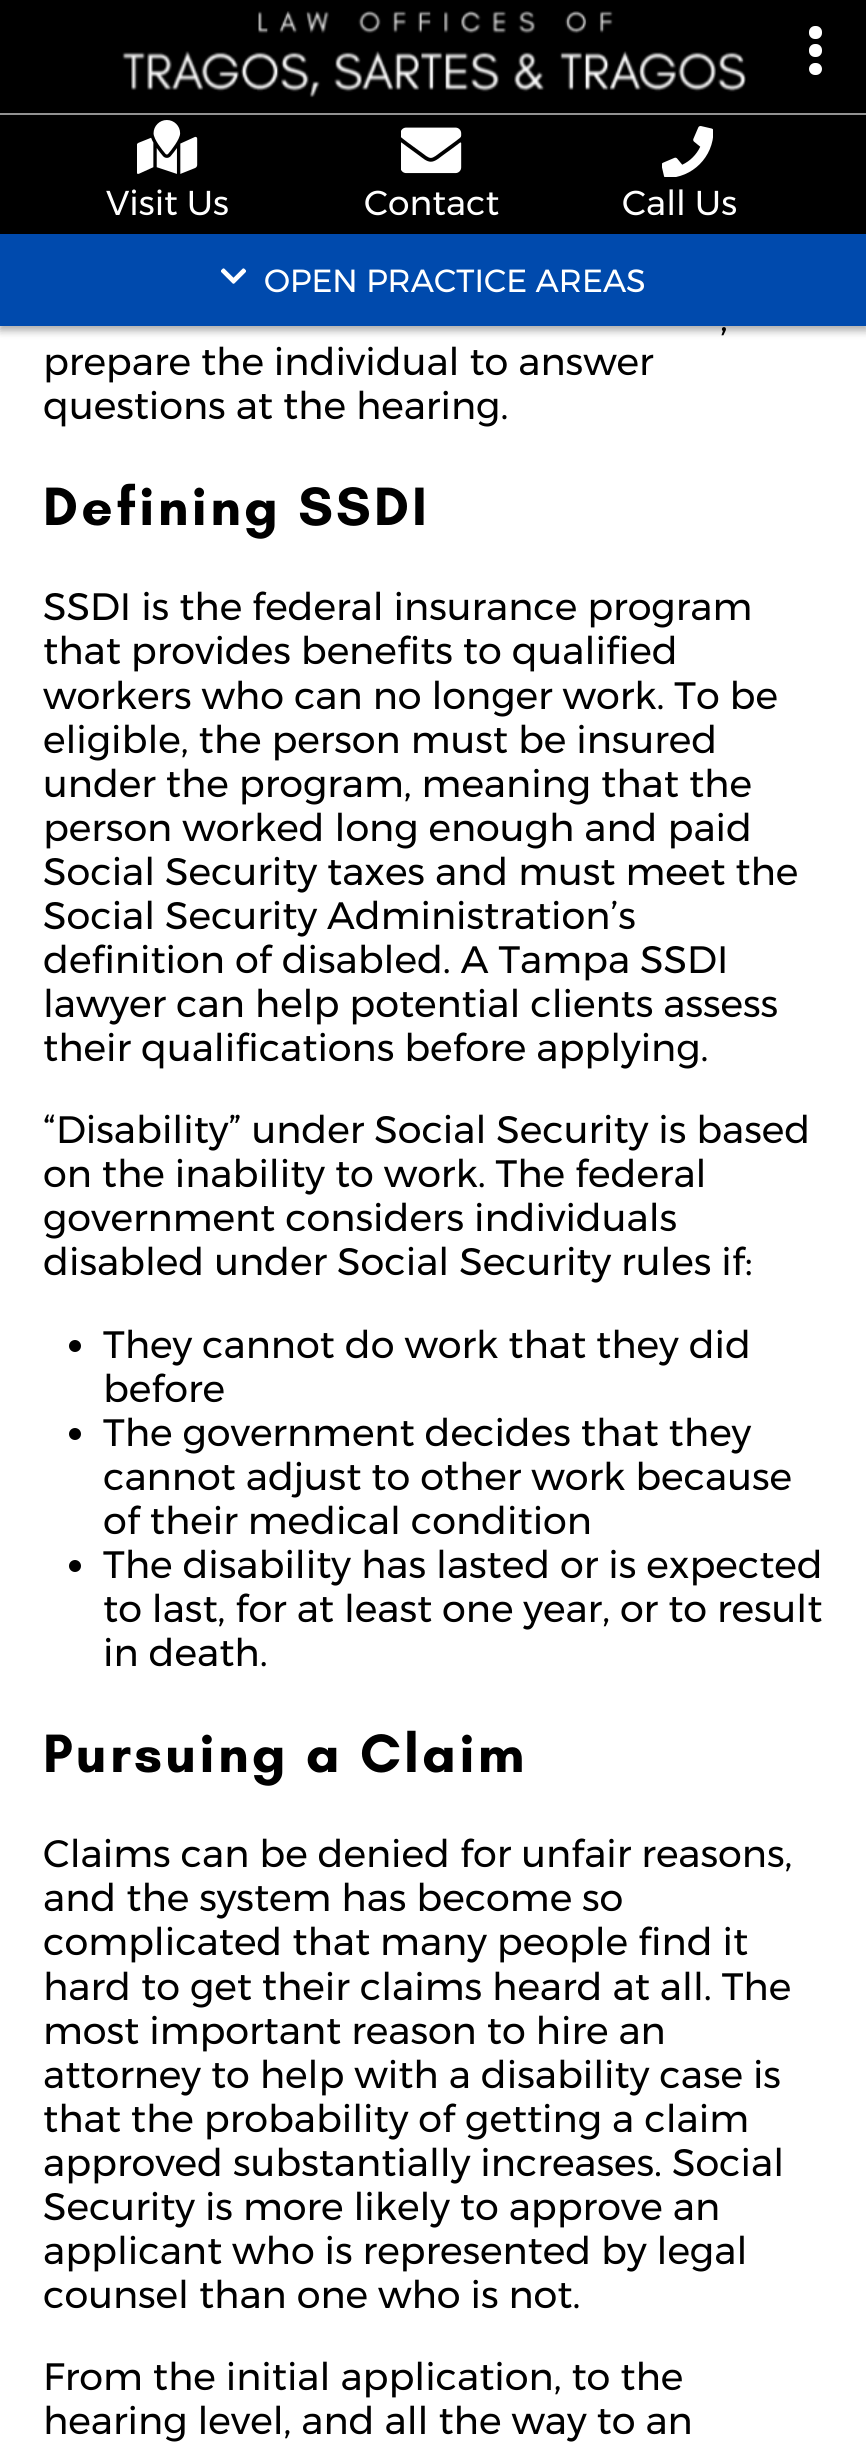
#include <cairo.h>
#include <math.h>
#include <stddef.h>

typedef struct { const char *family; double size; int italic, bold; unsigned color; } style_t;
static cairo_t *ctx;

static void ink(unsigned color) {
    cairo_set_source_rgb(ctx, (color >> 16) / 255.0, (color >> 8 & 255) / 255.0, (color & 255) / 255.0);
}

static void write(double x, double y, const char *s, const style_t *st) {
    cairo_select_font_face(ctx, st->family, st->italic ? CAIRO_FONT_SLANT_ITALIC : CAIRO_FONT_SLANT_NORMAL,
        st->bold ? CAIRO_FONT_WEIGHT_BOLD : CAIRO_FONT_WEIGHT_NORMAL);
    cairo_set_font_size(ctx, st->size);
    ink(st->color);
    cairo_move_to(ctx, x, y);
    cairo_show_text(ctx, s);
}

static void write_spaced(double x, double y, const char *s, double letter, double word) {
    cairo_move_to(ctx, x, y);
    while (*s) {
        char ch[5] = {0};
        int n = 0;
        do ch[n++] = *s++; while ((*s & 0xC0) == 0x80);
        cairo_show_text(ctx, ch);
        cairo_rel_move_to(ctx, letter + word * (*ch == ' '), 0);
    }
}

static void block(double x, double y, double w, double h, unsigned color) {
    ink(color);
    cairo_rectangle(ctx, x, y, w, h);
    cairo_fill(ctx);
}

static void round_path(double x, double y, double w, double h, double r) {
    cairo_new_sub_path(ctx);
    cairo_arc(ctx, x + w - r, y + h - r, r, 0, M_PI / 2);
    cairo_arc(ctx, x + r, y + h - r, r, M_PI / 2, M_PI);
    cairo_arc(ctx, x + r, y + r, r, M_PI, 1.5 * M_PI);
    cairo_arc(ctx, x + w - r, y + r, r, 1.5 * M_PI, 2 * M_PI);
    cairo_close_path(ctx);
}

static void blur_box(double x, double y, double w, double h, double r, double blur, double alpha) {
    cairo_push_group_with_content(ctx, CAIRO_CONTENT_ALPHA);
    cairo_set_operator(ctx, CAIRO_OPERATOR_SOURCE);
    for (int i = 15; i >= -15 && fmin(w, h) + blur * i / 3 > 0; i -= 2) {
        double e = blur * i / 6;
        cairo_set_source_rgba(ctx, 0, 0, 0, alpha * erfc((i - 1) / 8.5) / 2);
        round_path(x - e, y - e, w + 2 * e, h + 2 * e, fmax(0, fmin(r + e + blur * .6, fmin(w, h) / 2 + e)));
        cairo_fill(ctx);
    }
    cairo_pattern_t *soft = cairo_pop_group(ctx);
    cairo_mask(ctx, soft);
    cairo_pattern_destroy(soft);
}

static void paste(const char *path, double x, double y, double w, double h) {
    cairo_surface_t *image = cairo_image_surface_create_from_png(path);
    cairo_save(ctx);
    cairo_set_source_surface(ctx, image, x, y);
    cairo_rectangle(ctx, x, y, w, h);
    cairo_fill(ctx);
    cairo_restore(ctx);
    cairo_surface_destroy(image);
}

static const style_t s1 = {"Montserrat", 34.5, 0, 0, 0xffffff};
static const style_t s2 = {"Montserrat", 32, 0, 0, 0xffffff};
static const style_t s3 = {"Montserrat", 38.15, 0, 0, 0x000000};

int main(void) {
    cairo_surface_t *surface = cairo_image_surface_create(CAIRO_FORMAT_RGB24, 866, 2462);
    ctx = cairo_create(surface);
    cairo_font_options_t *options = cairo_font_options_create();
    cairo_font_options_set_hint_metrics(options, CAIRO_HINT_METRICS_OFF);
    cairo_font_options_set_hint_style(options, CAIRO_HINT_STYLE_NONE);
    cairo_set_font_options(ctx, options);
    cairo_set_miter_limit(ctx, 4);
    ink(0xffffff);
    cairo_paint(ctx);
    block(0, 0, 866, 234, 0x000000);
    paste("pic1.png", 122, 11, 624, 87);
    ink(0xffffff);
    round_path(809, 26, 13, 13, 6);
    cairo_fill(ctx);
    round_path(809, 44, 13, 13, 6);
    cairo_fill(ctx);
    round_path(809, 63, 13, 12, 6);
    cairo_fill(ctx);
    block(0, 113, 866, 2, 0x929292);
    paste("pic2.png", 137, 120, 61, 54);
    write(106, 215, "Visit Us", &s1);
    paste("pic3.png", 401, 127, 61, 47);
    write(364, 215, "Contact", &s1);
    paste("pic4.png", 662, 126, 51, 51);
    write(622, 215, "Call Us", &s1);
    ink(0x000000);
    blur_box(0, 239, 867, 91, 0, 4.5, 0.23);
    blur_box(0, 239, 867, 91, 0, 4.5, 0.16);
    block(0, 234, 866, 92, 0x004aad);
    paste("pic5.png", 221, 268, 25, 16);
    write(264, 292, "OPEN PRACTICE AREAS", &s2);
    write(720, 331, ",", &s3);
    write(43, 375, "prepare the individual to answer", &s3);
    write(43, 419, "questions at the hearing.", &s3);
    cairo_select_font_face(ctx, "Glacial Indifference", CAIRO_FONT_SLANT_NORMAL, CAIRO_FONT_WEIGHT_BOLD);
    cairo_set_font_size(ctx, 55);
    write_spaced(43, 525, "Defining SSDI", 3.25, 0);
    write(43, 620, "SSDI is the federal insurance program", &s3);
    write(43, 664, "that provides benefits to qualified", &s3);
    write(43, 709, "workers who can no longer work. To be", &s3);
    write(43, 753, "eligible, the person must be insured", &s3);
    write(43, 797, "under the program, meaning that the", &s3);
    write(43, 841, "person worked long enough and paid", &s3);
    write(43, 885, "Social Security taxes and must meet the", &s3);
    write(43, 929, "Social Security Administration’s", &s3);
    write(43, 973, "definition of disabled. A Tampa SSDI", &s3);
    write(43, 1017, "lawyer can help potential clients assess", &s3);
    write(43, 1061, "their qualifications before applying.", &s3);
    write(43, 1143, "“Disability” under Social Security is based", &s3);
    write(43, 1187, "on the inability to work. The federal", &s3);
    write(43, 1231, "government considers individuals", &s3);
    write(43, 1275, "disabled under Social Security rules if:", &s3);
    cairo_new_path(ctx);
    cairo_arc(ctx, 75, 1346, 6, 0, 2 * M_PI);
    cairo_fill(ctx);
    write(103, 1358, "They cannot do work that they did", &s3);
    write(103, 1402, "before", &s3);
    cairo_new_path(ctx);
    cairo_arc(ctx, 75, 1434, 6, 0, 2 * M_PI);
    cairo_fill(ctx);
    write(103, 1446, "The government decides that they", &s3);
    write(103, 1490, "cannot adjust to other work because", &s3);
    write(103, 1534, "of their medical condition", &s3);
    cairo_new_path(ctx);
    cairo_arc(ctx, 75, 1566, 6, 0, 2 * M_PI);
    cairo_fill(ctx);
    write(103, 1578, "The disability has lasted or is expected", &s3);
    write(103, 1622, "to last, for at least one year, or to result", &s3);
    write(103, 1666, "in death.", &s3);
    cairo_select_font_face(ctx, "Glacial Indifference", CAIRO_FONT_SLANT_NORMAL, CAIRO_FONT_WEIGHT_BOLD);
    cairo_set_font_size(ctx, 55);
    write_spaced(43, 1772, "Pursuing a Claim", 3.25, 0);
    write(43, 1867, "Claims can be denied for unfair reasons,", &s3);
    write(43, 1911, "and the system has become so", &s3);
    write(43, 1955, "complicated that many people find it", &s3);
    write(43, 2000, "hard to get their claims heard at all. The", &s3);
    write(43, 2044, "most important reason to hire an", &s3);
    write(43, 2088, "attorney to help with a disability case is", &s3);
    write(43, 2132, "that the probability of getting a claim", &s3);
    write(43, 2176, "approved substantially increases. Social", &s3);
    write(43, 2220, "Security is more likely to approve an", &s3);
    write(43, 2264, "applicant who is represented by legal", &s3);
    write(43, 2308, "counsel than one who is not.", &s3);
    write(43, 2390, "From the initial application, to the", &s3);
    write(43, 2434, "hearing level, and all the way to an", &s3);
    cairo_surface_write_to_png(surface, "screenshot.png");
    cairo_font_options_destroy(options);
    cairo_destroy(ctx);
    cairo_surface_destroy(surface);
    return 0;
}
